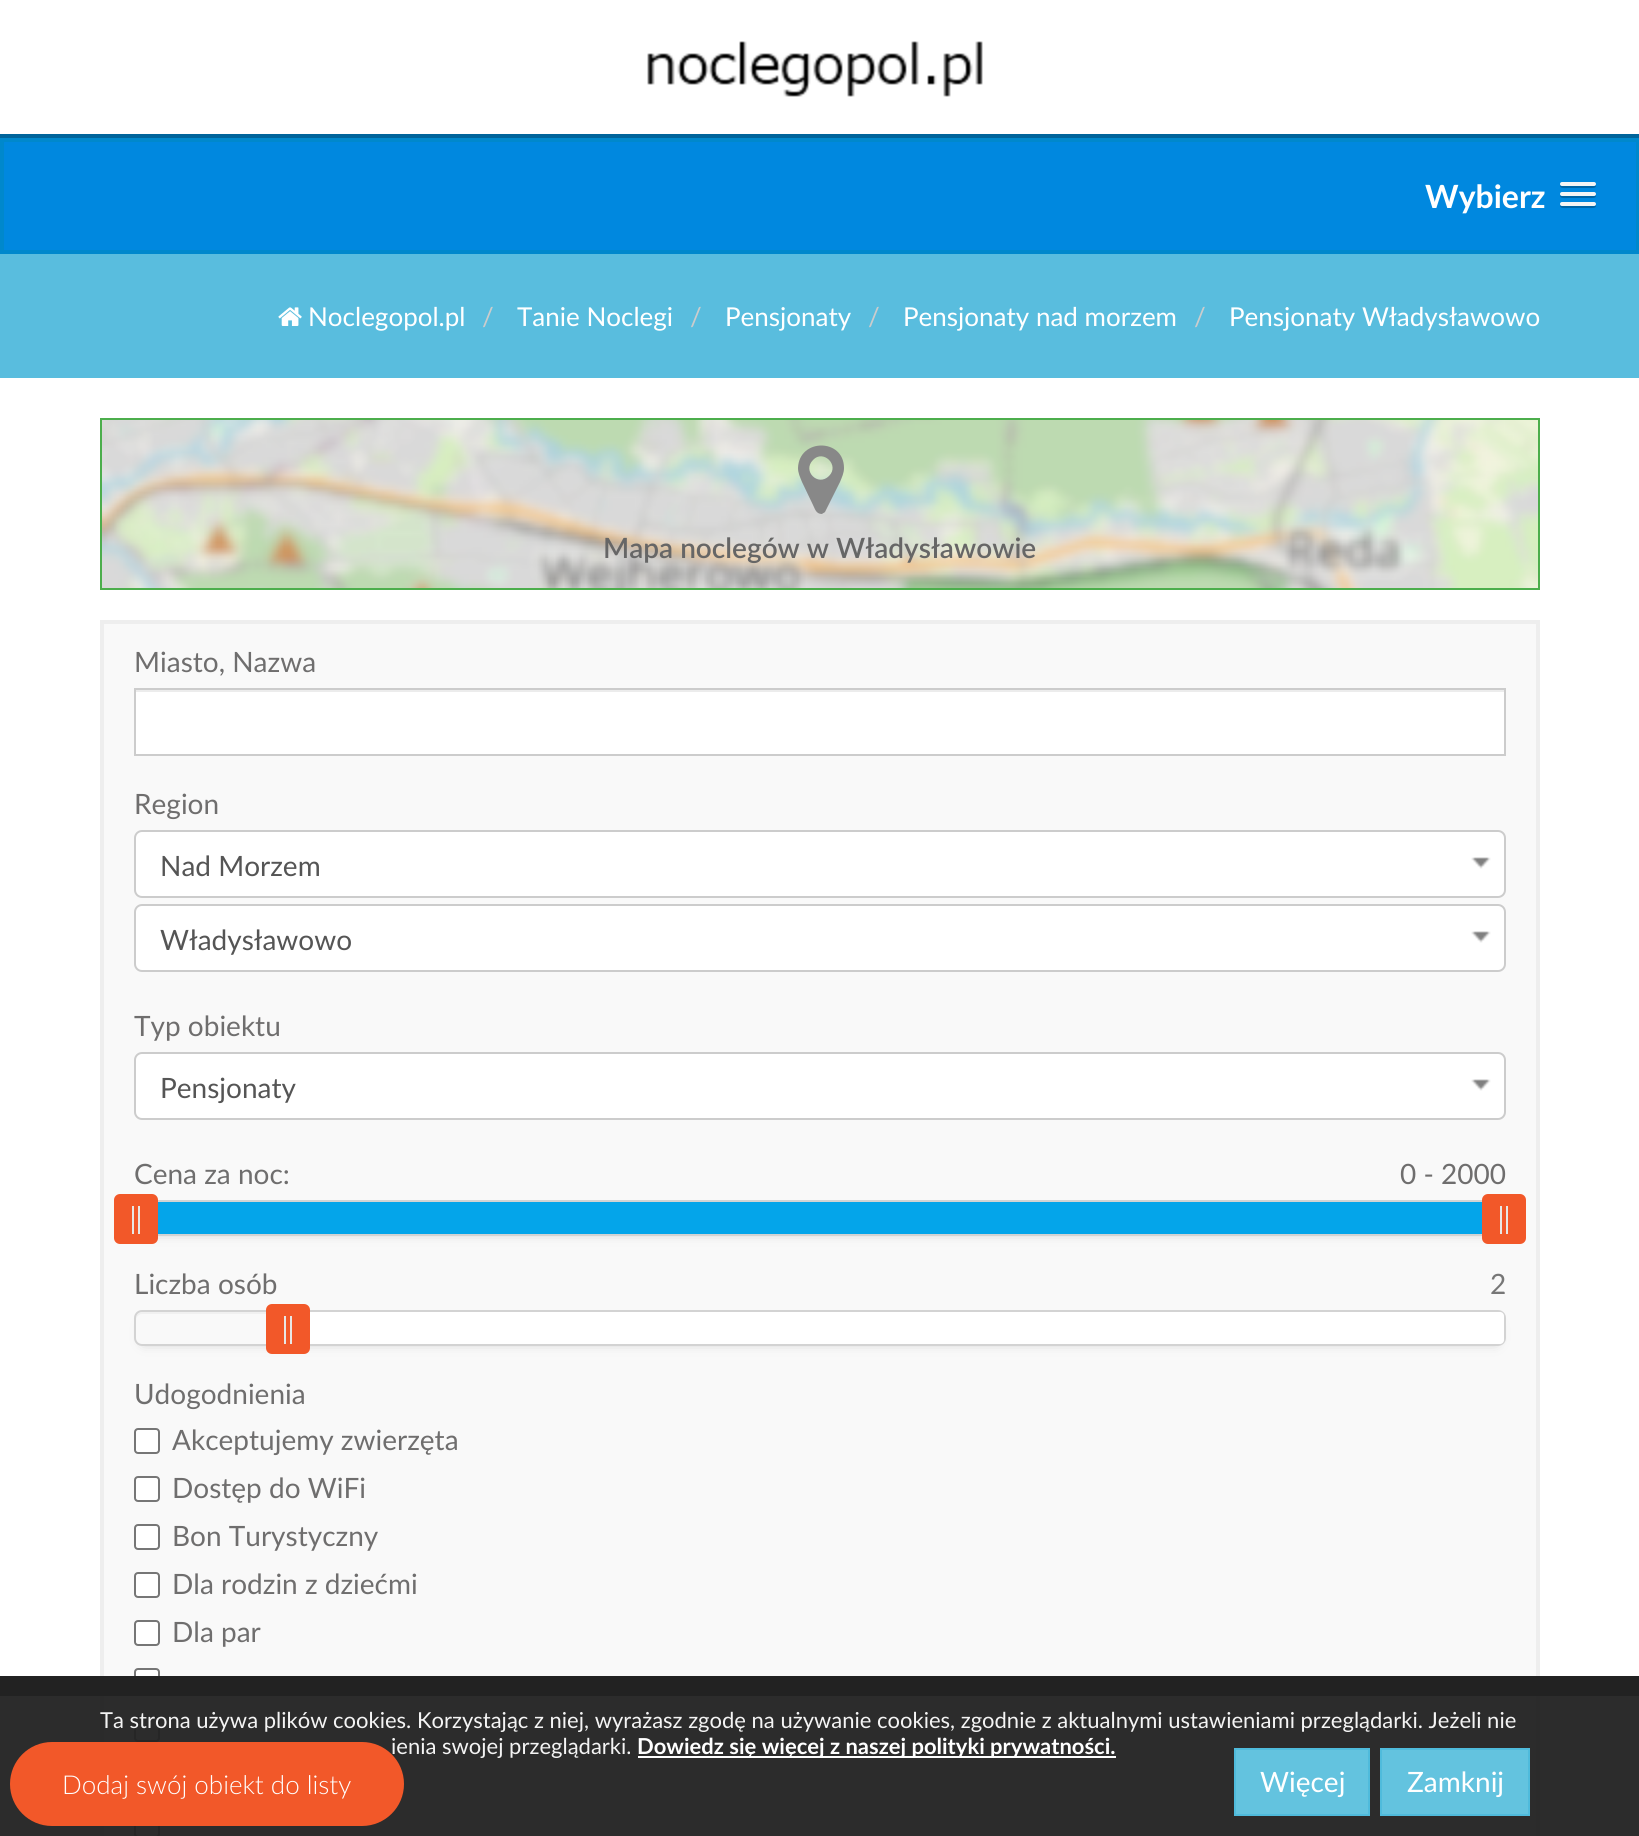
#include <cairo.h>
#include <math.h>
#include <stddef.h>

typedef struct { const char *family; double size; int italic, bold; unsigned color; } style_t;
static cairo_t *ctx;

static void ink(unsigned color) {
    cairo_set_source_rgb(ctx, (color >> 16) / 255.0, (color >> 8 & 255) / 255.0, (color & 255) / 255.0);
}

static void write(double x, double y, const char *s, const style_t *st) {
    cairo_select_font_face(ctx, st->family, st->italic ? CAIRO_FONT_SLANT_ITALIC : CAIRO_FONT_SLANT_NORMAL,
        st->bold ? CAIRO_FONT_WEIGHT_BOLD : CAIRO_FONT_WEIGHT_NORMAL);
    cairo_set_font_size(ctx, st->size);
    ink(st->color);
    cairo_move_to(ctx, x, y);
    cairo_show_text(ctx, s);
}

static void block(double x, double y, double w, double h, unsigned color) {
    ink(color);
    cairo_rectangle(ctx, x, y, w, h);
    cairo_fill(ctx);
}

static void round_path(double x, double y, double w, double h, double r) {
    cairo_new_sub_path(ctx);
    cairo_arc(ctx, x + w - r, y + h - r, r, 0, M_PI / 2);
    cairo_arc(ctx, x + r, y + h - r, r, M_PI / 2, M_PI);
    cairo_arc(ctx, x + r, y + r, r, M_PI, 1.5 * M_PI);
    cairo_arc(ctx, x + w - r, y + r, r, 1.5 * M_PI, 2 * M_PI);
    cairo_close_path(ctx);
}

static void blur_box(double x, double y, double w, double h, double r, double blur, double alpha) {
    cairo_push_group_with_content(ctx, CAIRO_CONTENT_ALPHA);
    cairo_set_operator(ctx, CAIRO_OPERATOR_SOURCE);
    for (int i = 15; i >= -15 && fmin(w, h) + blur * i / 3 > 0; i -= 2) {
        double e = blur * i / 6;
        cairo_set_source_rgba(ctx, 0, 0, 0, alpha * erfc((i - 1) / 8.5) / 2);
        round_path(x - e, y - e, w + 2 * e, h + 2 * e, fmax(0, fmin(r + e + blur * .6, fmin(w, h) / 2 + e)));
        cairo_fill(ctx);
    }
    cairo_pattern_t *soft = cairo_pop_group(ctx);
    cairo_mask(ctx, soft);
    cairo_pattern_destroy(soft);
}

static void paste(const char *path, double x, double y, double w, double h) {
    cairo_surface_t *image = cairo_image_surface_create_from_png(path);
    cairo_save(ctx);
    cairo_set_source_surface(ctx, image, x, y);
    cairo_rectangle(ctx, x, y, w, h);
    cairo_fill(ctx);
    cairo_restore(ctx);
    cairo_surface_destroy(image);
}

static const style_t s1 = {"Lato", 32, 0, 1, 0xffffff};
static const style_t s2 = {"Lato", 26, 0, 0, 0xffffff};
static const style_t s3 = {"Lato", 26, 0, 0, 0xcccccc};
static const style_t s4 = {"Lato SemiBold", 28, 0, 0, 0x666666};
static const style_t s5 = {"Lato", 28, 0, 0, 0x6f6e6e};
static const style_t s6 = {"Lato", 28, 0, 0, 0x555555};
static const style_t s7 = {"Lato", 28, 0, 0, 0x777777};
static const style_t s8 = {"Lato", 22, 0, 0, 0xf4f4f4};
static const style_t s9 = {"Lato", 22, 0, 1, 0xffffff};
static const style_t s10 = {"Lato", 28, 0, 0, 0xffffff};
static const style_t s11 = {"Lato Light", 26, 0, 0, 0xffffff};

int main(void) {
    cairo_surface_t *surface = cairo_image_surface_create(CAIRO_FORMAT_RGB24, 1639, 1836);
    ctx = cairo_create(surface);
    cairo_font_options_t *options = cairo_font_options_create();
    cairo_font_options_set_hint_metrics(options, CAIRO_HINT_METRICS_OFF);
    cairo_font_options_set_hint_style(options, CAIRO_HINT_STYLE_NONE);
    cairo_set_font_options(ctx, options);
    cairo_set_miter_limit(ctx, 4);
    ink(0xffffff);
    cairo_paint(ctx);
    block(0, 134, 1639, 4, 0x00649b);
    paste("pic1.png", 647, 41, 336, 56);
    ink(0x0088df);
    cairo_rectangle(ctx, 2, 140, 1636, 112);
    cairo_fill_preserve(ctx);
    ink(0x0088cc);
    cairo_set_line_width(ctx, 4);
    cairo_stroke(ctx);
    write(1425, 208, "Wybierz", &s1);
    ink(0x0066a7);
    cairo_new_path(ctx);
    cairo_move_to(ctx, 1560.5, 185);
    cairo_curve_to(ctx, 1558, 189, 1567, 188, 1567.5, 188);
    cairo_line_to(ctx, 1588.5, 188);
    cairo_curve_to(ctx, 1589, 188, 1598, 189, 1595.5, 185);
    cairo_curve_to(ctx, 1595.5, 185.5, 1594.5, 186, 1594, 186);
    cairo_line_to(ctx, 1562, 186);
    cairo_curve_to(ctx, 1561.5, 186, 1560.5, 185.5, 1560.5, 185);
    cairo_close_path(ctx);
    cairo_fill(ctx);
    ink(0xf5f5f5);
    round_path(1560, 182, 36, 4, 2);
    cairo_fill(ctx);
    ink(0x0066a7);
    cairo_new_path(ctx);
    cairo_move_to(ctx, 1560.5, 195);
    cairo_curve_to(ctx, 1558, 199, 1567, 198, 1567.5, 198);
    cairo_line_to(ctx, 1588.5, 198);
    cairo_curve_to(ctx, 1589, 198, 1598, 199, 1595.5, 195);
    cairo_curve_to(ctx, 1595.5, 195.5, 1594.5, 196, 1594, 196);
    cairo_line_to(ctx, 1562, 196);
    cairo_curve_to(ctx, 1561.5, 196, 1560.5, 195.5, 1560.5, 195);
    cairo_close_path(ctx);
    cairo_fill(ctx);
    ink(0xf5f5f5);
    round_path(1560, 192, 36, 4, 2);
    cairo_fill(ctx);
    ink(0x0066a7);
    cairo_new_path(ctx);
    cairo_move_to(ctx, 1560.5, 205);
    cairo_curve_to(ctx, 1558, 209, 1567, 208, 1567.5, 208);
    cairo_line_to(ctx, 1588.5, 208);
    cairo_curve_to(ctx, 1589, 208, 1598, 209, 1595.5, 205);
    cairo_curve_to(ctx, 1595.5, 205.5, 1594.5, 206, 1594, 206);
    cairo_line_to(ctx, 1562, 206);
    cairo_curve_to(ctx, 1561.5, 206, 1560.5, 205.5, 1560.5, 205);
    cairo_close_path(ctx);
    cairo_fill(ctx);
    ink(0xf5f5f5);
    round_path(1560, 202, 36, 4, 2);
    cairo_fill(ctx);
    block(0, 254, 1639, 124, 0x59bdde);
    paste("pic2.png", 278, 307, 24, 19);
    write(308, 326, "Noclegopol.pl", &s2);
    write(482, 326, "/", &s3);
    write(517, 326, "Tanie Noclegi", &s2);
    write(690, 326, "/", &s3);
    write(725, 326, "Pensjonaty", &s2);
    write(868, 326, "/", &s3);
    write(903, 326, "Pensjonaty nad morzem", &s2);
    write(1194, 326, "/", &s3);
    write(1229, 326, "Pensjonaty Władysławowo", &s2);
    paste("pic3.png", 102, 420, 1436, 168);
    cairo_rectangle(ctx, 101, 419, 1438, 170);
    ink(0x4cae4c);
    cairo_set_line_width(ctx, 2);
    cairo_stroke(ctx);
    ink(0x888888);
    cairo_new_path(ctx);
    cairo_move_to(ctx, 829, 476);
    cairo_curve_to(ctx, 840, 465, 823, 449, 813, 460);
    cairo_curve_to(ctx, 802, 471, 818, 487, 829, 476);
    cairo_close_path(ctx);
    cairo_move_to(ctx, 844, 468);
    cairo_curve_to(ctx, 844, 473, 842, 477, 840, 482);
    cairo_line_to(ctx, 825, 512);
    cairo_curve_to(ctx, 824, 513, 823, 513, 822, 514);
    cairo_curve_to(ctx, 816, 514, 815, 509, 813, 505);
    cairo_line_to(ctx, 802, 482);
    cairo_curve_to(ctx, 800, 477, 798, 473, 798, 468);
    cairo_curve_to(ctx, 799, 438, 844, 438, 844, 468);
    cairo_close_path(ctx);
    cairo_fill(ctx);
    write(603, 558, "Mapa noclegów w Władysławowie", &s4);
    ink(0xf9f9f9);
    cairo_rectangle(ctx, 102, 622, 1436, 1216);
    cairo_fill_preserve(ctx);
    ink(0xeeeeee);
    cairo_set_line_width(ctx, 4);
    cairo_stroke(ctx);
    write(134, 672, "Miasto, Nazwa", &s5);
    block(136, 692, 1368, 62, 0xffffff);
    block(136, 690, 1368, 2, 0xececec);
    cairo_rectangle(ctx, 135, 689, 1370, 66);
    ink(0xcccccc);
    cairo_set_line_width(ctx, 2);
    cairo_stroke(ctx);
    write(134, 814, "Region", &s5);
    ink(0xffffff);
    round_path(135, 831, 1370, 66, 7);
    cairo_fill_preserve(ctx);
    ink(0xcccccc);
    cairo_stroke(ctx);
    write(160, 876, "Nad Morzem", &s6);
    paste("pic4.png", 1471, 857, 20, 12);
    ink(0xffffff);
    round_path(135, 905, 1370, 66, 7);
    cairo_fill_preserve(ctx);
    ink(0xcccccc);
    cairo_stroke(ctx);
    write(160, 950, "Władysławowo", &s6);
    paste("pic4.png", 1471, 931, 20, 12);
    write(134, 1036, "Typ obiektu", &s5);
    ink(0xffffff);
    round_path(135, 1053, 1370, 66, 7);
    cairo_fill_preserve(ctx);
    ink(0xcccccc);
    cairo_stroke(ctx);
    write(160, 1098, "Pensjonaty", &s6);
    paste("pic4.png", 1471, 1079, 20, 12);
    write(134, 1184, "Cena za noc:", &s5);
    write(1400, 1184, "0 - 2000", &s5);
    ink(0xbbbbbb);
    blur_box(144, 1216, 1352, 16, 0, 6, 1);
    cairo_rectangle(ctx, 135, 1201, 1370, 34);
    ink(0xd3d3d3);
    cairo_stroke(ctx);
    block(158, 1202, 1324, 32, 0x04a5ea);
    ink(0xf25829);
    round_path(114, 1194, 44, 50, 6);
    cairo_fill(ctx);
    block(132, 1206, 2, 28, 0xe8e7e6);
    block(138, 1206, 2, 28, 0xe8e7e6);
    ink(0xf25829);
    round_path(1482, 1194, 44, 50, 6);
    cairo_fill(ctx);
    block(1500, 1206, 2, 28, 0xe8e7e6);
    block(1506, 1206, 2, 28, 0xe8e7e6);
    write(134, 1294, "Liczba osób", &s5);
    write(1490, 1294, "2", &s7);
    cairo_save(ctx);
    cairo_set_fill_rule(ctx, CAIRO_FILL_RULE_EVEN_ODD);
    cairo_new_path(ctx);
    cairo_move_to(ctx, 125, 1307);
    cairo_line_to(ctx, 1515, 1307);
    cairo_line_to(ctx, 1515, 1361);
    cairo_line_to(ctx, 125, 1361);
    cairo_close_path(ctx);
    cairo_move_to(ctx, 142, 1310);
    cairo_line_to(ctx, 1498, 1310);
    cairo_curve_to(ctx, 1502.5, 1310, 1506, 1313.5, 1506, 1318);
    cairo_line_to(ctx, 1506, 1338);
    cairo_curve_to(ctx, 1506, 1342.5, 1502.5, 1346, 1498, 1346);
    cairo_line_to(ctx, 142, 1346);
    cairo_curve_to(ctx, 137.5, 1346, 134, 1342.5, 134, 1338);
    cairo_line_to(ctx, 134, 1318);
    cairo_curve_to(ctx, 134, 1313.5, 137.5, 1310, 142, 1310);
    cairo_close_path(ctx);
    cairo_clip(ctx);
    ink(0xbbbbbb);
    blur_box(144, 1326, 1352, 16, 0, 6, 1);
    cairo_restore(ctx);
    ink(0xf0f0f0);
    cairo_new_path(ctx);
    cairo_move_to(ctx, 142, 1314);
    cairo_line_to(ctx, 1498, 1314);
    cairo_curve_to(ctx, 1501, 1314, 1504, 1317, 1504, 1320);
    cairo_line_to(ctx, 1504, 1318);
    cairo_curve_to(ctx, 1504, 1315, 1501, 1312, 1498, 1312);
    cairo_line_to(ctx, 142, 1312);
    cairo_curve_to(ctx, 139, 1312, 136, 1315, 136, 1318);
    cairo_line_to(ctx, 136, 1320);
    cairo_curve_to(ctx, 136, 1317, 139, 1314, 142, 1314);
    cairo_close_path(ctx);
    cairo_fill(ctx);
    round_path(135, 1311, 1370, 34, 7);
    ink(0xd3d3d3);
    cairo_stroke(ctx);
    ink(0xffffff);
    round_path(288, 1312, 1216, 32, 4);
    cairo_fill(ctx);
    ink(0xf25829);
    round_path(266, 1304, 44, 50, 6);
    cairo_fill(ctx);
    block(284, 1316, 2, 28, 0xe8e7e6);
    block(290, 1316, 2, 28, 0xe8e7e6);
    write(134, 1404, "Udogodnienia", &s5);
    ink(0xffffff);
    round_path(135, 1429, 24, 24, 3);
    cairo_fill_preserve(ctx);
    ink(0x767676);
    cairo_stroke(ctx);
    write(172, 1450, "Akceptujemy zwierzęta", &s5);
    ink(0xffffff);
    round_path(135, 1477, 24, 24, 3);
    cairo_fill_preserve(ctx);
    ink(0x767676);
    cairo_stroke(ctx);
    write(172, 1498, "Dostęp do WiFi", &s5);
    ink(0xffffff);
    round_path(135, 1525, 24, 24, 3);
    cairo_fill_preserve(ctx);
    ink(0x767676);
    cairo_stroke(ctx);
    write(172, 1546, "Bon Turystyczny", &s5);
    ink(0xffffff);
    round_path(135, 1573, 24, 24, 3);
    cairo_fill_preserve(ctx);
    ink(0x767676);
    cairo_stroke(ctx);
    write(172, 1594, "Dla rodzin z dziećmi", &s5);
    ink(0xffffff);
    round_path(135, 1621, 24, 24, 3);
    cairo_fill_preserve(ctx);
    ink(0x767676);
    cairo_stroke(ctx);
    write(172, 1642, "Dla par", &s5);
    ink(0xffffff);
    round_path(135, 1669, 24, 24, 3);
    cairo_fill_preserve(ctx);
    ink(0x767676);
    cairo_stroke(ctx);
    ink(0xffffff);
    round_path(135, 1717, 24, 24, 3);
    cairo_fill_preserve(ctx);
    ink(0x767676);
    cairo_stroke(ctx);
    ink(0xffffff);
    round_path(135, 1813, 24, 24, 3);
    cairo_fill_preserve(ctx);
    ink(0x767676);
    cairo_stroke(ctx);
    cairo_set_source_rgba(ctx, 0.133, 0.133, 0.133, 0.95);
    cairo_rectangle(ctx, 0, 1676, 1639, 160);
    cairo_fill(ctx);
    cairo_rectangle(ctx, 0, 1676, 1639, 20);
    cairo_fill(ctx);
    write(100, 1728, "Ta strona używa plików cookies. Korzystając z niej, wyrażasz zgodę na używanie cookies, zgodnie z aktualnymi ustawieniami przeglądarki. Jeżeli nie", &s8);
    write(391, 1754, "ienia swojej przeglądarki.", &s8);
    block(638, 1756, 478, 2, 0xffffff);
    write(637, 1754, "Dowiedz się więcej z naszej polityki prywatności.", &s9);
    ink(0x63c3df);
    cairo_rectangle(ctx, 1235, 1749, 134, 66);
    cairo_fill_preserve(ctx);
    ink(0x4fbbdc);
    cairo_stroke(ctx);
    write(1260, 1792, "Więcej", &s10);
    ink(0x63c3df);
    cairo_rectangle(ctx, 1381, 1749, 148, 66);
    cairo_fill_preserve(ctx);
    ink(0x4fbbdc);
    cairo_stroke(ctx);
    write(1407, 1792, "Zamknij", &s10);
    ink(0xf25829);
    round_path(10, 1742, 394, 84, 42);
    cairo_fill(ctx);
    write(62, 1794, "Dodaj swój obiekt do listy", &s11);
    cairo_surface_write_to_png(surface, "screenshot.png");
    cairo_font_options_destroy(options);
    cairo_destroy(ctx);
    cairo_surface_destroy(surface);
    return 0;
}
